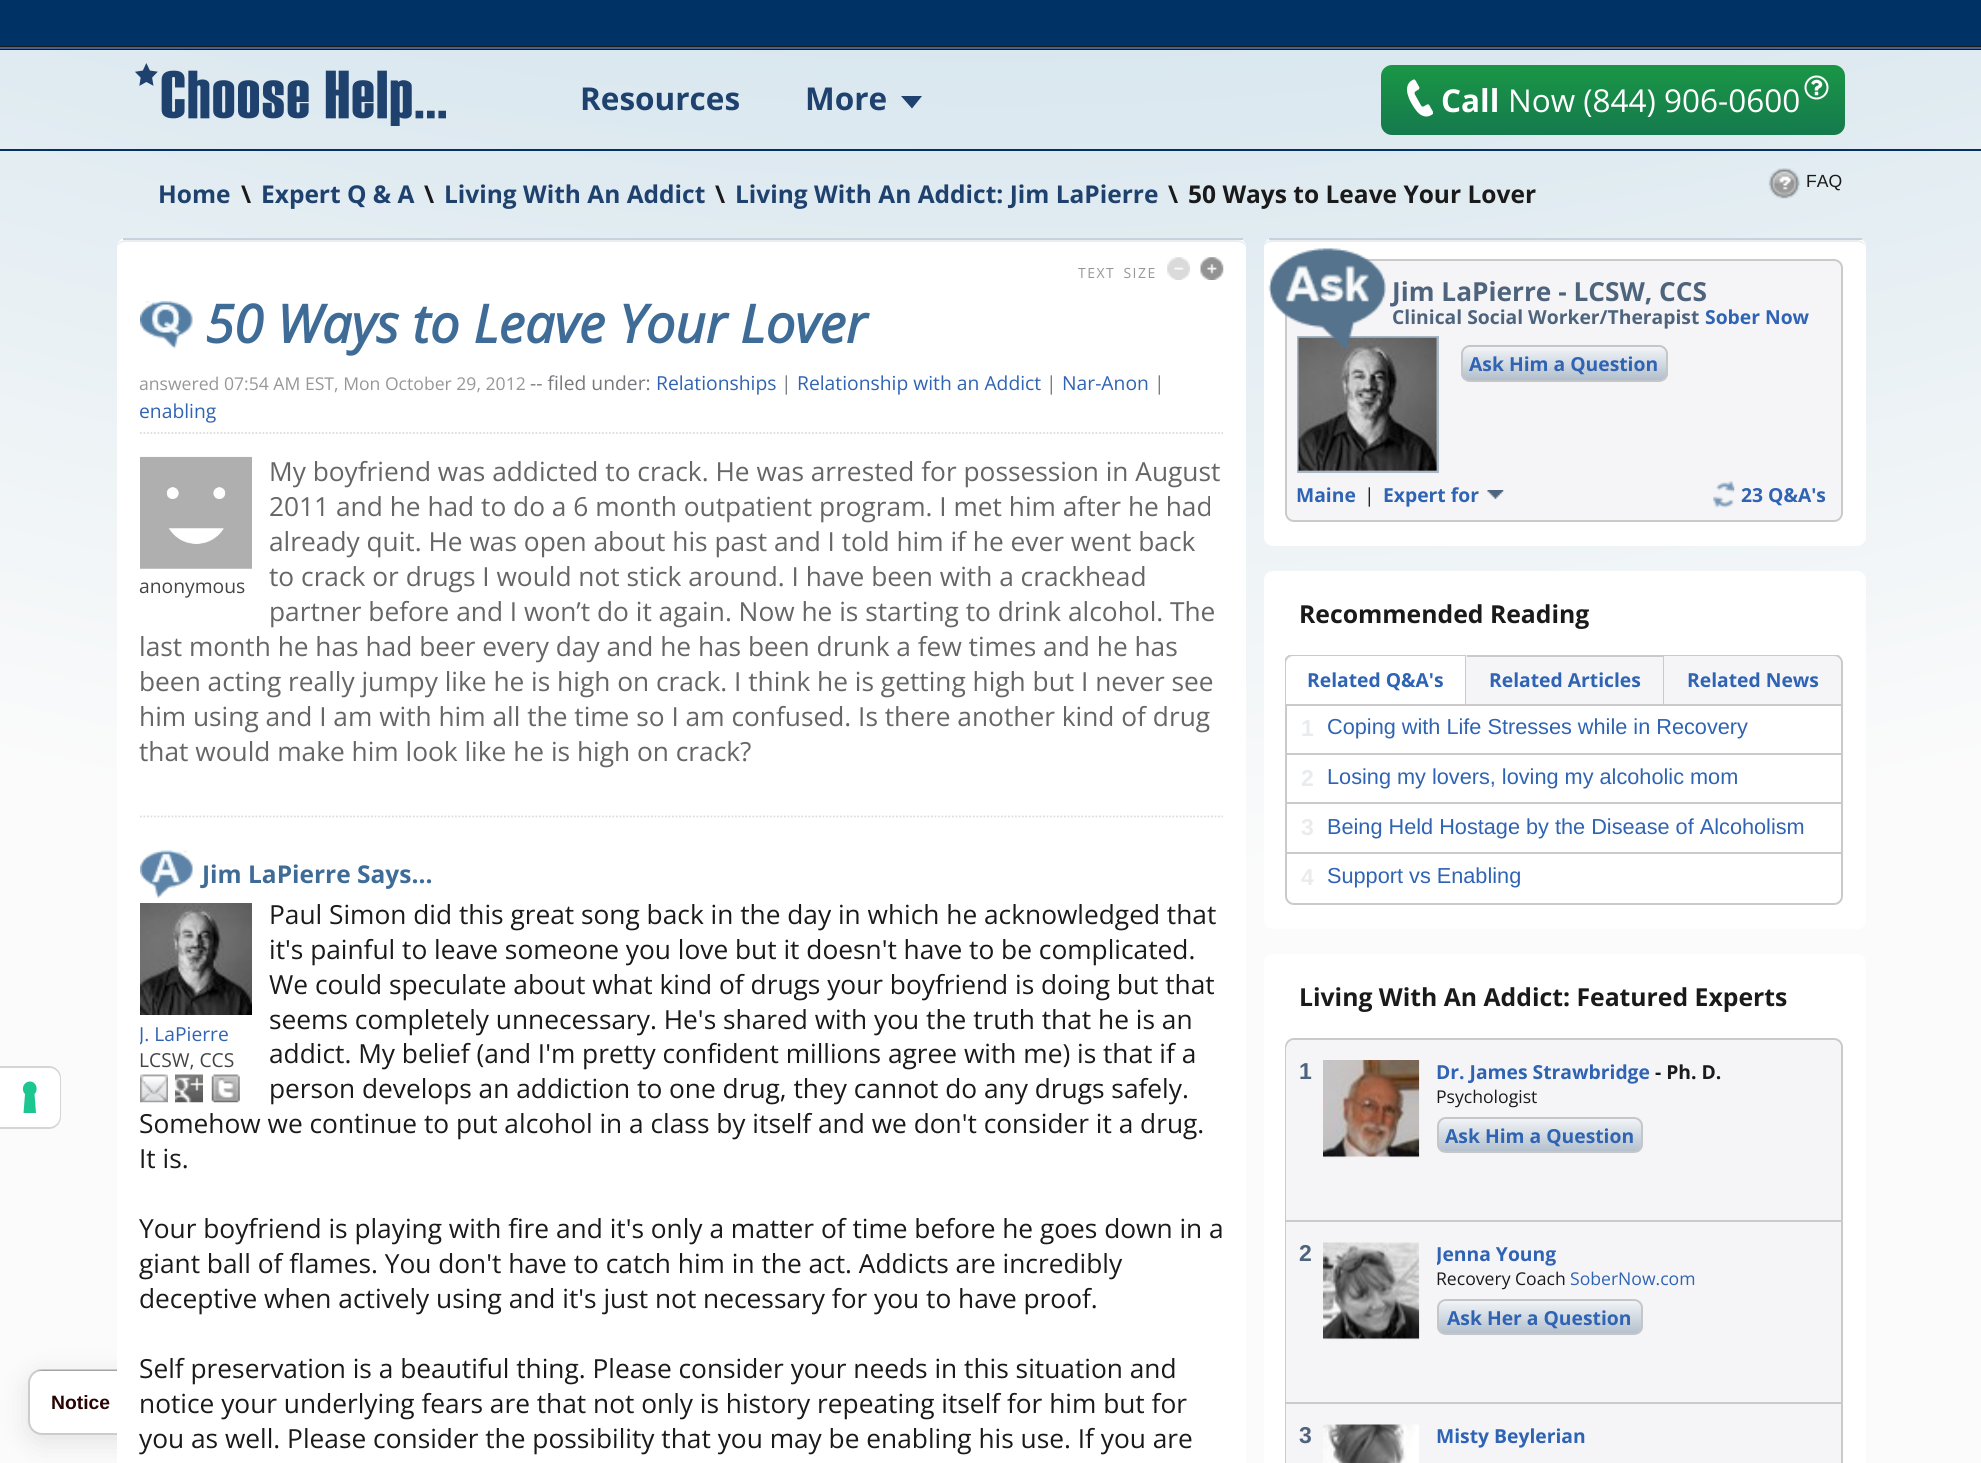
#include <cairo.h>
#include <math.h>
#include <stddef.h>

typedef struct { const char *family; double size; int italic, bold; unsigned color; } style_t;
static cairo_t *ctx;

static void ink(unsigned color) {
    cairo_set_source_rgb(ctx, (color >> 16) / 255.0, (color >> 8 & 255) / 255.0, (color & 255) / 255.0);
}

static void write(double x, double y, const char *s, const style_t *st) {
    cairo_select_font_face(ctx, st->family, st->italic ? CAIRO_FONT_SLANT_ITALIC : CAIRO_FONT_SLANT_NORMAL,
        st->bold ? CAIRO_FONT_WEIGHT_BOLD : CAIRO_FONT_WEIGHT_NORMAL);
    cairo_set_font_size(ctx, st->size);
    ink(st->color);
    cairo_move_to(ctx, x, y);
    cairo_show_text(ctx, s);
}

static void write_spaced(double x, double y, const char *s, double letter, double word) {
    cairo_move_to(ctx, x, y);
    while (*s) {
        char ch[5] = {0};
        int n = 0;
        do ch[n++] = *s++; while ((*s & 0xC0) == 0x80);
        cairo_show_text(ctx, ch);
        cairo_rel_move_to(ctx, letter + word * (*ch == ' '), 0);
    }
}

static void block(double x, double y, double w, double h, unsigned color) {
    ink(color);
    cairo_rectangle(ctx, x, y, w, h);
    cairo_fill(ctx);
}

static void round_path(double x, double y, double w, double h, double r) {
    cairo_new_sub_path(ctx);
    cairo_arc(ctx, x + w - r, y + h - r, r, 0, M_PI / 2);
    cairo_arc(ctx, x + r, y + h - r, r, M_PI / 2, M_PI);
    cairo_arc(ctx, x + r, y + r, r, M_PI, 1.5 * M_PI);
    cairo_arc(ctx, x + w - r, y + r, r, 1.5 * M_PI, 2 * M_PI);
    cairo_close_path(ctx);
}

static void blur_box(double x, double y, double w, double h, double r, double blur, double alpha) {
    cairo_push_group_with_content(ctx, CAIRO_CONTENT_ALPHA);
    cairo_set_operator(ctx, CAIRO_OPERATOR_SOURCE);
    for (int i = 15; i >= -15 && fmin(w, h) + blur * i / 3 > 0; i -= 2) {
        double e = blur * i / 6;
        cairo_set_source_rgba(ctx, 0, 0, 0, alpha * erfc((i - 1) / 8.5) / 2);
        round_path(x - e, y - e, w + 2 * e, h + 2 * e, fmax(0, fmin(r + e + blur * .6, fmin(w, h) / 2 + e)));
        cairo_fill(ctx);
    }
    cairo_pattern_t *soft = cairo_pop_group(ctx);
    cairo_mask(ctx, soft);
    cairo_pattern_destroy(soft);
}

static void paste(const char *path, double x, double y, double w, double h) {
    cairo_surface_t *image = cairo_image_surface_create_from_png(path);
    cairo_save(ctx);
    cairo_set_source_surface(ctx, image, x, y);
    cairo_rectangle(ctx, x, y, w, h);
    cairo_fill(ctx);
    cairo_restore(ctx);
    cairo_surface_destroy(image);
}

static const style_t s1 = {"Open Sans", 31.5, 0, 1, 0x1e416e};
static const style_t s2 = {"Open Sans", 31.5, 0, 1, 0xffffff};
static const style_t s3 = {"Open Sans", 31.5, 0, 0, 0xffffff};
static const style_t s4 = {"Open Sans", 24.5, 0, 1, 0x1e416e};
static const style_t s5 = {"Open Sans", 24.5, 0, 1, 0x1a1a1b};
static const style_t s6 = {"Liberation Sans", 17.6, 0, 0, 0x1a1a1b};
static const style_t s7 = {"Open Sans", 52.75, 1, 1, 0x3e6c97};
static const style_t s8 = {"Open Sans", 17.6, 0, 0, 0x979797};
static const style_t s9 = {"Open Sans", 19.3, 0, 0, 0x76797c};
static const style_t s10 = {"Open Sans", 19.3, 0, 0, 0x2f63b3};
static const style_t s11 = {"Open Sans", 26.3, 0, 0, 0x666666};
static const style_t s12 = {"Open Sans", 19.3, 0, 0, 0x444444};
static const style_t s13 = {"Open Sans", 24.5, 0, 1, 0x3e6c97};
static const style_t s14 = {"Open Sans", 26.3, 0, 0, 0x1a1a1b};
static const style_t s15 = {"Open Sans", 19.25, 0, 0, 0x2f63b3};
static const style_t s16 = {"Open Sans", 19.25, 0, 0, 0x444444};
static const style_t s17 = {"Open Sans", 26.25, 0, 1, 0x4e647d};
static const style_t s18 = {"Open Sans", 19.3, 0, 1, 0x4e647d};
static const style_t s19 = {"Open Sans", 19.3, 0, 1, 0x2f63b3};
static const style_t s20 = {"Open Sans", 19.3, 0, 0, 0x1a1a1b};
static const style_t s21 = {"Open Sans", 24.75, 0, 1, 0x1a1a1b};
static const style_t s22 = {"Liberation Sans", 23, 0, 1, 0xe9ebed};
static const style_t s23 = {"Liberation Sans", 21.7, 0, 0, 0x2f63b3};
static const style_t s24 = {"Liberation Sans", 23, 0, 1, 0x4e647d};
static const style_t s25 = {"Open Sans", 19.3, 0, 1, 0x1a1a1b};
static const style_t s26 = {"Open Sans", 17.6, 0, 0, 0x1a1a1b};
static const style_t s27 = {"Open Sans", 17.6, 0, 0, 0x2f63b3};
static const style_t s28 = {"Liberation Sans", 19.3, 0, 1, 0x280404};

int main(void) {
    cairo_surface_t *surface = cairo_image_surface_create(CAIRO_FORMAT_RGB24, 1981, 1463);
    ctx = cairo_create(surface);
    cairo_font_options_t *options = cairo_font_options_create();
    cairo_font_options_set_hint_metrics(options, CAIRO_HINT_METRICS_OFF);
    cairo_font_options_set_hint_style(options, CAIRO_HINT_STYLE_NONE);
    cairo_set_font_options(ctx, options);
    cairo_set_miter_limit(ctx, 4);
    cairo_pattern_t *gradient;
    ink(0xffffff);
    cairo_paint(ctx);
    gradient = cairo_pattern_create_radial(991, -3301, 0, 991, -3301, 6969);
    cairo_pattern_add_color_stop_rgba(gradient, 0.25, 0.596, 0.757, 0.843, 1);
    cairo_pattern_add_color_stop_rgba(gradient, 0.6, 0.984, 0.984, 0.984, 1);
    cairo_set_source(ctx, gradient);
    cairo_pattern_destroy(gradient);
    cairo_rectangle(ctx, 0, 50, 1981, 1413);
    cairo_fill(ctx);
    cairo_new_path(ctx);
    cairo_move_to(ctx, -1, 1067);
    cairo_line_to(ctx, 49, 1067);
    cairo_curve_to(ctx, 55, 1067, 60, 1072, 60, 1078);
    cairo_line_to(ctx, 60, 1117);
    cairo_curve_to(ctx, 60, 1123, 55, 1128, 49, 1128);
    cairo_line_to(ctx, -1, 1128);
    cairo_close_path(ctx);
    ink(0xd5d5d5);
    cairo_stroke(ctx);
    ink(0xffffff);
    cairo_new_path(ctx);
    cairo_move_to(ctx, 0, 1068);
    cairo_line_to(ctx, 49, 1068);
    cairo_curve_to(ctx, 55, 1068, 60, 1073, 60, 1079);
    cairo_line_to(ctx, 60, 1116);
    cairo_curve_to(ctx, 60, 1122, 55, 1127, 49, 1127);
    cairo_line_to(ctx, 0, 1127);
    cairo_close_path(ctx);
    cairo_fill(ctx);
    ink(0x1cc691);
    cairo_set_fill_rule(ctx, CAIRO_FILL_RULE_EVEN_ODD);
    cairo_new_path(ctx);
    cairo_move_to(ctx, 30, 1081.5);
    cairo_curve_to(ctx, 36, 1081.5, 39, 1089.5, 34.5, 1094);
    cairo_line_to(ctx, 36, 1113);
    cairo_line_to(ctx, 23.5, 1113);
    cairo_line_to(ctx, 25, 1094);
    cairo_curve_to(ctx, 20.5, 1089.5, 23.5, 1081.5, 30, 1081.5);
    cairo_close_path(ctx);
    cairo_fill(ctx);
    block(0, 0, 1981, 46, 0x003265);
    block(0, 149, 1981, 2, 0x003265);
    block(0, 46, 1981, 4, 0x19191a);
    block(0, 47, 1981, 2, 0x466391);
    paste("pic1.png", 135, 63, 311, 63);
    write(580, 110, "Resources", &s1);
    write(805, 110, "More", &s1);
    cairo_set_fill_rule(ctx, CAIRO_FILL_RULE_WINDING);
    cairo_new_path(ctx);
    cairo_move_to(ctx, 901, 96);
    cairo_line_to(ctx, 922, 96);
    cairo_line_to(ctx, 912, 108.5);
    cairo_close_path(ctx);
    cairo_fill(ctx);
    gradient = cairo_pattern_create_linear(1613, 65, 1613, 135);
    cairo_pattern_add_color_stop_rgba(gradient, 0, 0.102, 0.588, 0.275, 1);
    cairo_pattern_add_color_stop_rgba(gradient, 1, 0.082, 0.478, 0.302, 1);
    cairo_set_source(ctx, gradient);
    cairo_pattern_destroy(gradient);
    round_path(1381, 65, 464, 70, 11);
    cairo_fill(ctx);
    paste("pic2.png", 1407, 79, 26, 38);
    write(1441, 112, "Call", &s2);
    write(1508, 112, "Now (844) 906-0600", &s3);
    paste("pic3.png", 1804, 75, 25, 25);
    write(158, 203, "Home", &s4);
    write(241, 203, "\\", &s5);
    write(261, 203, "Expert Q & A", &s4);
    write(424, 203, "\\", &s5);
    write(444, 203, "Living With An Addict", &s4);
    write(715, 203, "\\", &s5);
    write(735, 203, "Living With An Addict: Jim LaPierre", &s4);
    write(1168, 203, "\\", &s5);
    write(1188, 203, "50 Ways to Leave Your Lover", &s5);
    paste("pic4.png", 1768, 168, 33, 31);
    write(1806, 187, "FAQ", &s6);
    ink(0x000000);
    blur_box(28, 1376, 222, 66, 14, 14, 0.1);
    ink(0xffffff);
    round_path(28, 1369, 222, 66, 14);
    cairo_fill(ctx);
    round_path(29, 1370, 220, 64, 13);
    cairo_set_source_rgba(ctx, 0, 0, 0, 0.2);
    cairo_stroke(ctx);
    ink(0xa3a3a3);
    cairo_set_fill_rule(ctx, CAIRO_FILL_RULE_EVEN_ODD);
    cairo_new_path(ctx);
    cairo_move_to(ctx, 42, 1370);
    cairo_line_to(ctx, 37, 1371);
    cairo_line_to(ctx, 242, 1371);
    cairo_line_to(ctx, 237, 1370);
    cairo_close_path(ctx);
    cairo_move_to(ctx, 248, 1377);
    cairo_line_to(ctx, 248, 1426);
    cairo_line_to(ctx, 249, 1421);
    cairo_line_to(ctx, 249, 1382);
    cairo_close_path(ctx);
    cairo_fill(ctx);
    ink(0xffffff);
    round_path(117, 238, 1129, 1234, 9);
    cairo_fill(ctx);
    ink(0xebeef1);
    cairo_set_fill_rule(ctx, CAIRO_FILL_RULE_WINDING);
    cairo_new_path(ctx);
    cairo_move_to(ctx, 126, 242);
    cairo_line_to(ctx, 1237, 242);
    cairo_curve_to(ctx, 1242, 242, 1246, 245, 1246, 248);
    cairo_curve_to(ctx, 1246, 243, 1242, 240, 1237, 240);
    cairo_line_to(ctx, 126, 240);
    cairo_curve_to(ctx, 122, 240, 117, 242, 117, 247);
    cairo_curve_to(ctx, 118, 244, 122, 242, 126, 242);
    cairo_close_path(ctx);
    cairo_fill(ctx);
    block(123, 238, 1120, 2, 0xc8d2dc);
    cairo_select_font_face(ctx, "Open Sans", CAIRO_FONT_SLANT_NORMAL, CAIRO_FONT_WEIGHT_NORMAL);
    cairo_set_font_size(ctx, 14);
    ink(0x979797);
    write_spaced(1078, 278, "TEXT SIZE", 1.5, 3);
    paste("pic5.png", 1167, 257, 23, 23);
    paste("pic6.png", 1200, 257, 24, 23);
    paste("pic7.png", 140, 301, 53, 48);
    write(205, 343, "50 Ways to Leave Your Lover", &s7);
    cairo_new_path(ctx);
    cairo_move_to(ctx, 140, 433);
    cairo_line_to(ctx, 1223, 433);
    ink(0xdddddd);
    cairo_set_line_width(ctx, 1.8);
    cairo_set_dash(ctx, (double[]){1.75, 1.75}, 2, 0);
    cairo_stroke(ctx);
    write(139, 390, "answered 07:54 AM EST, Mon October 29, 2012", &s8);
    write(530, 390, "-- filed under:", &s9);
    write(656, 390, "Relationships", &s10);
    write(781, 390, "|", &s9);
    write(797, 390, "Relationship with an Addict", &s10);
    write(1046, 390, "|", &s9);
    write(1062, 390, "Nar-Anon", &s10);
    write(1154, 390, "|", &s9);
    write(139, 418, "enabling", &s10);
    write(269, 481, "My boyfriend was addicted to crack. He was arrested for possession in August", &s11);
    write(269, 516, "2011 and he had to do a 6 month outpatient program. I met him after he had", &s11);
    write(269, 551, "already quit. He was open about his past and I told him if he ever went back", &s11);
    write(269, 586, "to crack or drugs I would not stick around. I have been with a crackhead", &s11);
    write(269, 621, "partner before and I won’t do it again. Now he is starting to drink alcohol. The", &s11);
    write(139, 656, "last month he has had beer every day and he has been drunk a few times and he has", &s11);
    write(139, 691, "been acting really jumpy like he is high on crack. I think he is getting high but I never see", &s11);
    write(139, 726, "him using and I am with him all the time so I am confused. Is there another kind of drug", &s11);
    write(139, 761, "that would make him look like he is high on crack?", &s11);
    paste("pic8.png", 140, 456, 112, 113);
    write(139, 593, "anonymous", &s12);
    cairo_new_path(ctx);
    cairo_move_to(ctx, 140, 816.5);
    cairo_line_to(ctx, 1223, 816.5);
    ink(0xdddddd);
    cairo_stroke(ctx);
    paste("pic9.png", 140, 850, 53, 48);
    write(202, 883, "Jim LaPierre Says...", &s13);
    write(269, 924, "Paul Simon did this great song back in the day in which he acknowledged that", &s14);
    write(269, 959, "it's painful to leave someone you love but it doesn't have to be complicated.", &s14);
    write(269, 994, "We could speculate about what kind of drugs your boyfriend is doing but that", &s14);
    write(269, 1029, "seems completely unnecessary. He's shared with you the truth that he is an", &s14);
    write(269, 1063, "addict. My belief (and I'm pretty confident millions agree with me) is that if a", &s14);
    write(269, 1098, "person develops an addiction to one drug, they cannot do any drugs safely.", &s14);
    write(139, 1133, "Somehow we continue to put alcohol in a class by itself and we don't consider it a drug.", &s14);
    write(139, 1168, "It is.", &s14);
    write(139, 1238, "Your boyfriend is playing with fire and it's only a matter of time before he goes down in a", &s14);
    write(139, 1273, "giant ball of flames. You don't have to catch him in the act. Addicts are incredibly", &s14);
    write(139, 1308, "deceptive when actively using and it's just not necessary for you to have proof.", &s14);
    write(139, 1378, "Self preservation is a beautiful thing. Please consider your needs in this situation and", &s14);
    write(139, 1413, "notice your underlying fears are that not only is history repeating itself for him but for", &s14);
    write(139, 1448, "you as well. Please consider the possibility that you may be enabling his use. If you are", &s14);
    paste("pic10.png", 140, 903, 112, 112);
    cairo_save(ctx);
    cairo_rectangle(ctx, 140, 903, 112, 200);
    cairo_clip(ctx);
    write(139, 1041, "J. LaPierre", &s15);
    cairo_restore(ctx);
    write(139, 1067, "LCSW, CCS", &s16);
    paste("pic11.png", 140, 1074, 28, 29);
    paste("pic12.png", 175, 1074, 28, 29);
    paste("pic13.png", 211, 1074, 29, 29);
    ink(0xffffff);
    round_path(1264, 238, 602, 308, 9);
    cairo_fill(ctx);
    ink(0xebeef1);
    cairo_new_path(ctx);
    cairo_move_to(ctx, 1272, 242);
    cairo_line_to(ctx, 1857, 242);
    cairo_curve_to(ctx, 1861, 242, 1864, 244, 1865, 246);
    cairo_curve_to(ctx, 1865, 243, 1861, 240, 1857, 240);
    cairo_line_to(ctx, 1272, 240);
    cairo_curve_to(ctx, 1267, 240, 1264, 243, 1264, 247);
    cairo_line_to(ctx, 1264, 537);
    cairo_line_to(ctx, 1264, 540);
    cairo_line_to(ctx, 1264, 248);
    cairo_curve_to(ctx, 1264, 245, 1267, 242, 1272, 242);
    cairo_close_path(ctx);
    cairo_fill(ctx);
    block(1269, 238, 593, 2, 0xc8d2dc);
    ink(0xf5f5f7);
    round_path(1286, 260, 556, 261, 8);
    cairo_fill_preserve(ctx);
    ink(0xcacaca);
    cairo_set_line_width(ctx, 2);
    cairo_set_dash(ctx, NULL, 0, 0);
    cairo_stroke(ctx);
    cairo_rectangle(ctx, 1298, 337, 140, 135);
    ink(0xa6b7c8);
    cairo_stroke(ctx);
    paste("pic15.png", 1298, 337, 139, 134);
    paste("pic14.png", 1268, 248, 118, 102);
    write(1392, 301, "Jim LaPierre - LCSW, CCS", &s17);
    write(1392, 324, "Clinical Social Worker/Therapist", &s18);
    write(1705, 324, "Sober Now", &s19);
    cairo_save(ctx);
    round_path(1461, 345, 207, 37, 9);
    cairo_clip(ctx);
    gradient = cairo_pattern_create_linear(1565, 347, 1565, 380);
    cairo_pattern_add_color_stop_rgba(gradient, 0, 0.953, 0.961, 0.973, 1);
    cairo_pattern_add_color_stop_rgba(gradient, 1, 0.698, 0.749, 0.8, 1);
    cairo_set_source(ctx, gradient);
    cairo_pattern_destroy(gradient);
    cairo_rectangle(ctx, 1461, 347, 207, 33);
    cairo_fill(ctx);
    cairo_restore(ctx);
    round_path(1462, 346, 205, 35, 8);
    ink(0xc5c6c7);
    cairo_stroke(ctx);
    write(1469, 371, "Ask Him a Question", &s19);
    write(1296, 502, "Maine", &s19);
    write(1364, 502, "|", &s20);
    paste("pic16.png", 1487, 490, 17, 9);
    write(1383, 502, "Expert for", &s19);
    paste("pic17.png", 1713, 481, 22, 27);
    write(1741, 502, "23 Q&A's", &s19);
    ink(0xffffff);
    round_path(1264, 571, 602, 358, 9);
    cairo_fill(ctx);
    write(1299, 623, "Recommended Reading", &s21);
    ink(0xf5f5f7);
    cairo_new_path(ctx);
    cairo_move_to(ctx, 1294, 655);
    cairo_line_to(ctx, 1467, 655);
    cairo_line_to(ctx, 1467, 704);
    cairo_line_to(ctx, 1285, 704);
    cairo_line_to(ctx, 1285, 664);
    cairo_curve_to(ctx, 1285, 659, 1289, 655, 1294, 655);
    cairo_close_path(ctx);
    cairo_fill(ctx);
    cairo_save(ctx);
    cairo_rectangle(ctx, 1285, 655, 558, 49);
    cairo_clip(ctx);
    ink(0xcacaca);
    cairo_set_fill_rule(ctx, CAIRO_FILL_RULE_EVEN_ODD);
    cairo_new_path(ctx);
    cairo_move_to(ctx, 1293, 654);
    cairo_line_to(ctx, 1466, 654);
    cairo_line_to(ctx, 1466, 704);
    cairo_line_to(ctx, 1284, 704);
    cairo_line_to(ctx, 1284, 663);
    cairo_curve_to(ctx, 1284, 658, 1288, 654, 1293, 654);
    cairo_close_path(ctx);
    cairo_move_to(ctx, 1293, 656);
    cairo_line_to(ctx, 1465, 656);
    cairo_line_to(ctx, 1465, 704);
    cairo_line_to(ctx, 1286, 704);
    cairo_line_to(ctx, 1286, 663);
    cairo_curve_to(ctx, 1286, 659, 1289, 656, 1293, 656);
    cairo_close_path(ctx);
    cairo_fill(ctx);
    cairo_restore(ctx);
    ink(0xffffff);
    cairo_new_path(ctx);
    cairo_move_to(ctx, 1295, 656);
    cairo_line_to(ctx, 1465, 656);
    cairo_line_to(ctx, 1465, 704);
    cairo_line_to(ctx, 1286, 704);
    cairo_line_to(ctx, 1286, 665);
    cairo_curve_to(ctx, 1286, 660, 1290, 656, 1295, 656);
    cairo_close_path(ctx);
    cairo_fill(ctx);
    write(1307, 687, "Related Q&A's", &s19);
    block(1467, 657, 196, 47, 0xf5f5f7);
    block(1467, 655, 197, 2, 0xcacaca);
    block(1663, 655, 1, 49, 0xcacaca);
    write(1489, 687, "Related Articles", &s19);
    ink(0xf5f5f7);
    cairo_new_path(ctx);
    cairo_move_to(ctx, 1664, 655);
    cairo_line_to(ctx, 1834, 655);
    cairo_curve_to(ctx, 1839, 655, 1843, 659, 1843, 664);
    cairo_line_to(ctx, 1843, 704);
    cairo_line_to(ctx, 1664, 704);
    cairo_close_path(ctx);
    cairo_fill(ctx);
    cairo_save(ctx);
    cairo_rectangle(ctx, 1285, 655, 558, 49);
    cairo_clip(ctx);
    ink(0xcacaca);
    cairo_set_fill_rule(ctx, CAIRO_FILL_RULE_EVEN_ODD);
    cairo_new_path(ctx);
    cairo_move_to(ctx, 1664, 654);
    cairo_line_to(ctx, 1834, 654);
    cairo_curve_to(ctx, 1839, 654, 1843, 658, 1843, 663);
    cairo_line_to(ctx, 1843, 704);
    cairo_line_to(ctx, 1664, 704);
    cairo_close_path(ctx);
    cairo_move_to(ctx, 1664, 656);
    cairo_line_to(ctx, 1834, 656);
    cairo_curve_to(ctx, 1838, 656, 1841, 659, 1841, 663);
    cairo_line_to(ctx, 1841, 704);
    cairo_line_to(ctx, 1664, 704);
    cairo_close_path(ctx);
    cairo_fill(ctx);
    cairo_restore(ctx);
    write(1687, 687, "Related News", &s19);
    cairo_new_path(ctx);
    cairo_move_to(ctx, 1286, 705);
    cairo_line_to(ctx, 1842, 705);
    cairo_line_to(ctx, 1842, 896);
    cairo_curve_to(ctx, 1842, 900.5, 1838.5, 904, 1834, 904);
    cairo_line_to(ctx, 1294, 904);
    cairo_curve_to(ctx, 1289.5, 904, 1286, 900.5, 1286, 896);
    cairo_close_path(ctx);
    ink(0xcacaca);
    cairo_stroke(ctx);
    write(1301, 736, "1", &s22);
    write(1327, 734, "Coping with Life Stresses while in Recovery", &s23);
    block(1286, 753, 555, 2, 0xcacaca);
    write(1301, 786, "2", &s22);
    write(1327, 784, "Losing my lovers, loving my alcoholic mom", &s23);
    block(1286, 802, 555, 2, 0xcacaca);
    write(1301, 835, "3", &s22);
    write(1327, 834, "Being Held Hostage by the Disease of Alcoholism", &s23);
    block(1286, 852, 555, 2, 0xcacaca);
    write(1301, 885, "4", &s22);
    write(1327, 883, "Support vs Enabling", &s23);
    ink(0xffffff);
    round_path(1264, 954, 602, 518, 9);
    cairo_fill(ctx);
    write(1299, 1006, "Living With An Addict: Featured Experts", &s21);
    ink(0xf5f5f7);
    round_path(1286, 1039, 556, 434, 8);
    cairo_fill_preserve(ctx);
    ink(0xcacaca);
    cairo_stroke(ctx);
    ink(0xf5f5f7);
    cairo_new_path(ctx);
    cairo_move_to(ctx, 1295, 1040);
    cairo_line_to(ctx, 1832, 1040);
    cairo_curve_to(ctx, 1837, 1040, 1841, 1044, 1841, 1049);
    cairo_line_to(ctx, 1841, 1222);
    cairo_line_to(ctx, 1286, 1222);
    cairo_line_to(ctx, 1286, 1049);
    cairo_curve_to(ctx, 1286, 1044, 1290, 1040, 1295, 1040);
    cairo_close_path(ctx);
    cairo_fill(ctx);
    block(1286, 1220, 555, 2, 0xcacaca);
    write(1299, 1079, "1", &s24);
    paste("pic18.png", 1323, 1060, 97, 98);
    write(1436, 1079, "Dr. James Strawbridge", &s19);
    write(1655, 1079, "- Ph. D.", &s25);
    write(1436, 1103, "Psychologist", &s26);
    cairo_save(ctx);
    round_path(1437, 1117, 206, 36, 9);
    cairo_clip(ctx);
    gradient = cairo_pattern_create_linear(1540, 1118, 1540, 1152);
    cairo_pattern_add_color_stop_rgba(gradient, 0, 0.953, 0.961, 0.973, 1);
    cairo_pattern_add_color_stop_rgba(gradient, 1, 0.698, 0.749, 0.8, 1);
    cairo_set_source(ctx, gradient);
    cairo_pattern_destroy(gradient);
    cairo_rectangle(ctx, 1437, 1118, 206, 34);
    cairo_fill(ctx);
    cairo_restore(ctx);
    round_path(1438, 1118, 204, 34, 8);
    ink(0xc5c6c7);
    cairo_stroke(ctx);
    write(1445, 1143, "Ask Him a Question", &s19);
    block(1286, 1222, 1, 180, 0xf5f5f7);
    block(1286, 1402, 555, 2, 0xcacaca);
    write(1299, 1261, "2", &s24);
    paste("pic19.png", 1323, 1242, 97, 98);
    cairo_save(ctx);
    cairo_rectangle(ctx, 1437, 1243, 371, 24);
    cairo_clip(ctx);
    write(1436, 1261, "Jenna Young", &s19);
    cairo_restore(ctx);
    write(1436, 1285, "Recovery Coach", &s26);
    write(1570, 1285, "SoberNow.com", &s27);
    cairo_save(ctx);
    round_path(1437, 1299, 206, 36, 9);
    cairo_clip(ctx);
    gradient = cairo_pattern_create_linear(1540, 1300, 1540, 1334);
    cairo_pattern_add_color_stop_rgba(gradient, 0, 0.953, 0.961, 0.973, 1);
    cairo_pattern_add_color_stop_rgba(gradient, 1, 0.698, 0.749, 0.8, 1);
    cairo_set_source(ctx, gradient);
    cairo_pattern_destroy(gradient);
    cairo_rectangle(ctx, 1437, 1300, 206, 34);
    cairo_fill(ctx);
    cairo_restore(ctx);
    round_path(1438, 1300, 204, 34, 8);
    ink(0xc5c6c7);
    cairo_stroke(ctx);
    write(1447, 1325, "Ask Her a Question", &s19);
    block(1286, 1404, 1, 59, 0xf5f5f7);
    write(1299, 1443, "3", &s24);
    paste("pic20.png", 1323, 1424, 96, 39);
    write(1436, 1443, "Misty Beylerian", &s19);
    write(51, 1409, "Notice", &s28);
    cairo_surface_write_to_png(surface, "screenshot.png");
    cairo_font_options_destroy(options);
    cairo_destroy(ctx);
    cairo_surface_destroy(surface);
    return 0;
}
